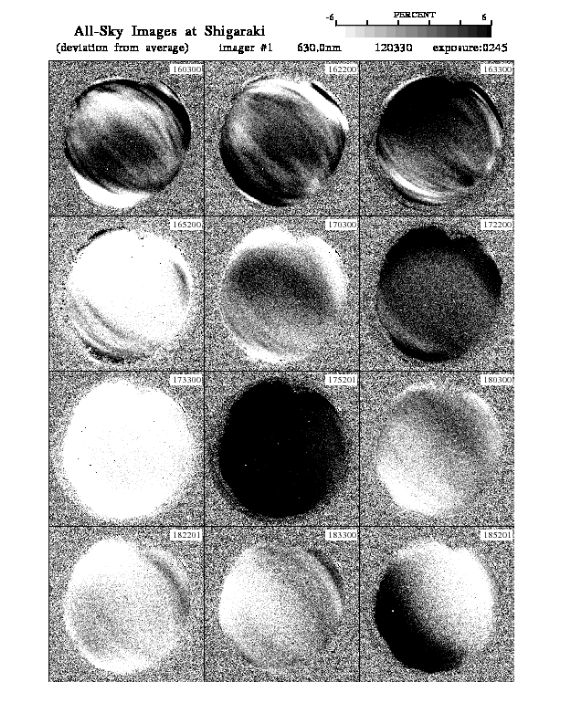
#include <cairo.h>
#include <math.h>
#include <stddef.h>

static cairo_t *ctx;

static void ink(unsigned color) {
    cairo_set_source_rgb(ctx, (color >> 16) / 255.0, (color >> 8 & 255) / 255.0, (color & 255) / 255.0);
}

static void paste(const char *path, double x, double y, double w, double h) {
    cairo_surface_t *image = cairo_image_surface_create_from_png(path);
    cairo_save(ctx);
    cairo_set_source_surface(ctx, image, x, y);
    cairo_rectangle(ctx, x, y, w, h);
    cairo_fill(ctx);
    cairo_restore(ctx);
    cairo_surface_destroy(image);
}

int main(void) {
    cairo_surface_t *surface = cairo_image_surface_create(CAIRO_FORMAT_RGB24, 581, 728);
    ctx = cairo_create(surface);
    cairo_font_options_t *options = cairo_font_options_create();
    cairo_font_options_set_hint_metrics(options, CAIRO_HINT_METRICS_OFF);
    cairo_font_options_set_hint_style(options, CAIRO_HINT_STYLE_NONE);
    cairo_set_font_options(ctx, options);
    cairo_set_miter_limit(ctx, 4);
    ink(0xffffff);
    cairo_paint(ctx);
    paste("pic1.png", 48, 12, 467, 670);
    cairo_surface_write_to_png(surface, "screenshot.png");
    cairo_font_options_destroy(options);
    cairo_destroy(ctx);
    cairo_surface_destroy(surface);
    return 0;
}
